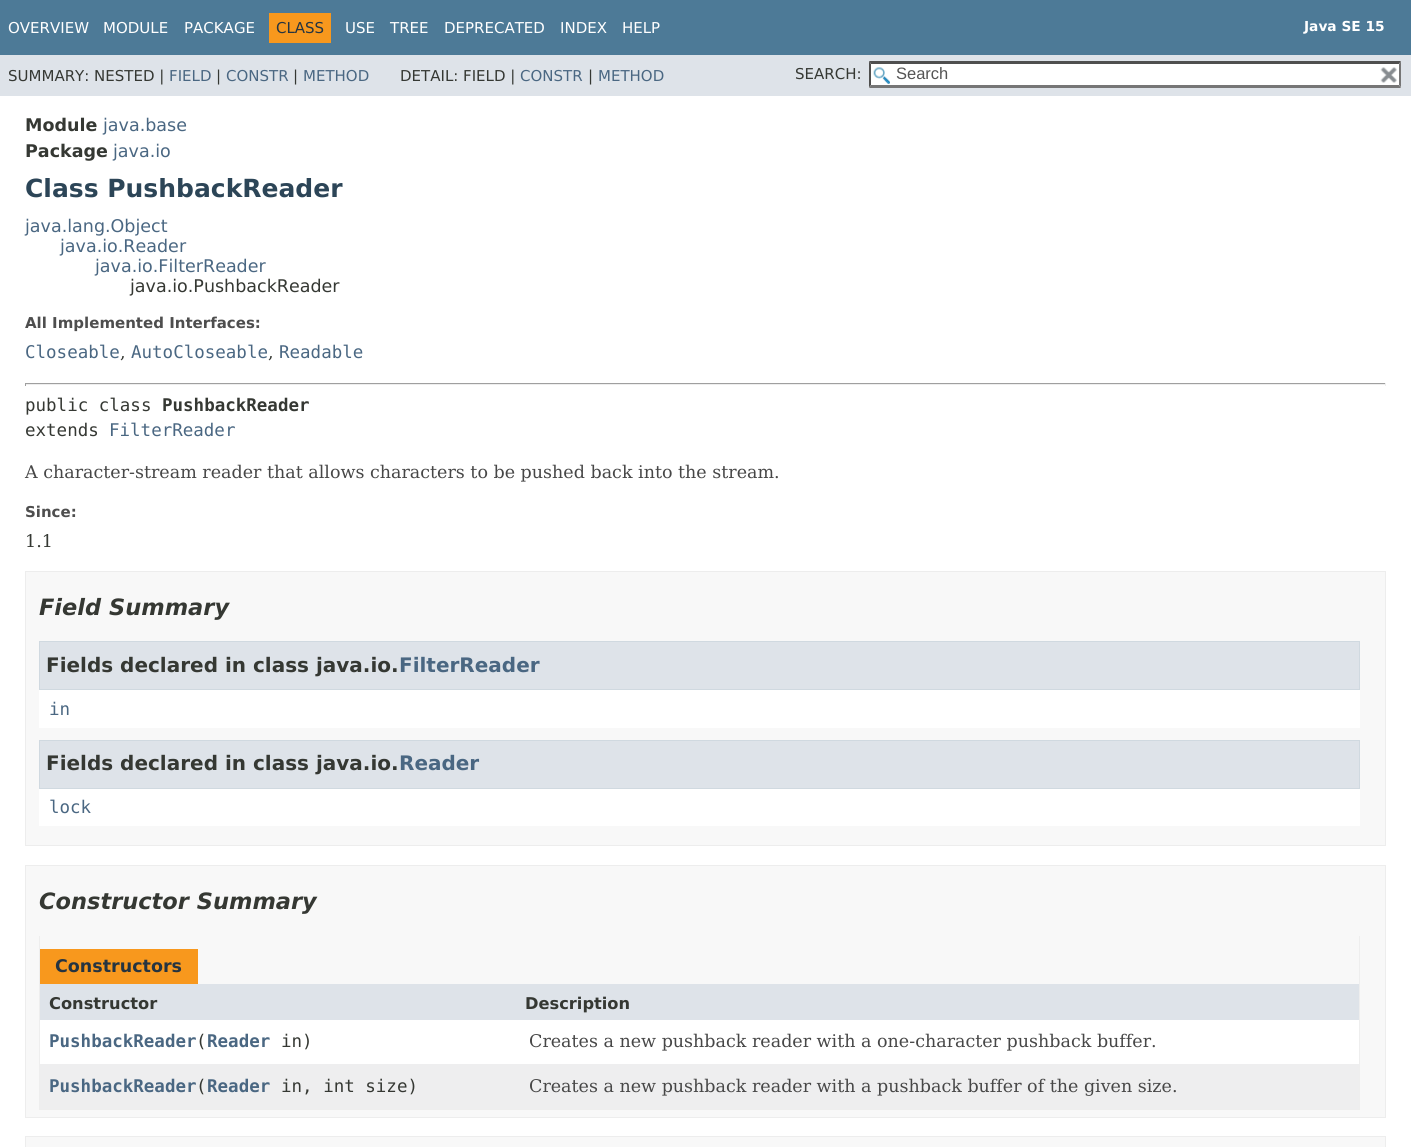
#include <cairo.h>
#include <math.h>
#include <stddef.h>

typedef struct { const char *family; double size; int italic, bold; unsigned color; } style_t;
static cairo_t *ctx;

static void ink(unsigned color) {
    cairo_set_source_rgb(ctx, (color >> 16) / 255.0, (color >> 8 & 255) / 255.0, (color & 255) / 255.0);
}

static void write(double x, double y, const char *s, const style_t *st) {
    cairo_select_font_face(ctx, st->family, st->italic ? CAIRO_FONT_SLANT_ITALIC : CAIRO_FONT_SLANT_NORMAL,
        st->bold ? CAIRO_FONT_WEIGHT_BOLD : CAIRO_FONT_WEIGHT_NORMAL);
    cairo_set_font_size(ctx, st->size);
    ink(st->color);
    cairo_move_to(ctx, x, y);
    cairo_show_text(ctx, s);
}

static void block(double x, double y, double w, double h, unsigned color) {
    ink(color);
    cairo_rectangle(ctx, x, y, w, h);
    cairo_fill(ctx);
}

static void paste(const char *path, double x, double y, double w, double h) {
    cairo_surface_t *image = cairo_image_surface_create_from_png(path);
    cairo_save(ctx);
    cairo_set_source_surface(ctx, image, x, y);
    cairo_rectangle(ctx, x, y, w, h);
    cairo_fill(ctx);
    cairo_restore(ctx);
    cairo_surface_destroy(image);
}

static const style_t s1 = {"DejaVu Sans", 15, 0, 0, 0xffffff};
static const style_t s2 = {"DejaVu Sans", 15, 0, 0, 0x253441};
static const style_t s3 = {"DejaVu Sans", 13.75, 0, 1, 0xffffff};
static const style_t s4 = {"DejaVu Sans", 15, 0, 0, 0x353833};
static const style_t s5 = {"DejaVu Sans", 15, 0, 0, 0x4a6782};
static const style_t s6 = {"Liberation Sans", 16.5, 0, 0, 0x545454};
static const style_t s7 = {"DejaVu Sans", 17.5, 0, 1, 0x353833};
static const style_t s8 = {"DejaVu Sans", 17.5, 0, 0, 0x4a6782};
static const style_t s9 = {"DejaVu Sans", 25, 0, 1, 0x2c4557};
static const style_t s10 = {"DejaVu Sans", 17.5, 0, 0, 0x353833};
static const style_t s11 = {"DejaVu Sans", 15, 0, 1, 0x4e4e4e};
static const style_t s12 = {"DejaVu Sans Mono", 17.5, 0, 0, 0x4a6782};
static const style_t s13 = {"DejaVu Serif", 17.5, 0, 0, 0x353833};
static const style_t s14 = {"DejaVu Sans Mono", 17.5, 0, 0, 0x353833};
static const style_t s15 = {"DejaVu Sans Mono", 17.5, 0, 1, 0x353833};
static const style_t s16 = {"DejaVu Serif", 17.5, 0, 0, 0x474747};
static const style_t s17 = {"DejaVu Sans", 22.5, 1, 1, 0x353833};
static const style_t s18 = {"DejaVu Sans", 20, 0, 1, 0x353833};
static const style_t s19 = {"DejaVu Sans", 20, 0, 1, 0x4a6782};
static const style_t s20 = {"DejaVu Sans", 17.5, 0, 1, 0x253441};
static const style_t s21 = {"DejaVu Sans", 16.25, 0, 1, 0x353833};
static const style_t s22 = {"DejaVu Sans Mono", 17.5, 0, 1, 0x4a6782};

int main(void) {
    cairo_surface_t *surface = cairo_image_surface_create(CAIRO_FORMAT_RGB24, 1411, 1147);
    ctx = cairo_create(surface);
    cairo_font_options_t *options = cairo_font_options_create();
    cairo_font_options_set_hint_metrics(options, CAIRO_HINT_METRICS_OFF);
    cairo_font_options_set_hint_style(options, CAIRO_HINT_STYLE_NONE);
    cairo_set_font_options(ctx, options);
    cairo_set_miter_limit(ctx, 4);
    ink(0xffffff);
    cairo_paint(ctx);
    block(0, 0, 1411, 55, 0x4d7a97);
    write(8, 33, "OVERVIEW", &s1);
    write(103, 33, "MODULE", &s1);
    write(184, 33, "PACKAGE", &s1);
    block(269, 13, 62, 30, 0xf8981d);
    write(276, 33, "CLASS", &s2);
    write(345, 33, "USE", &s1);
    write(390, 33, "TREE", &s1);
    write(444, 33, "DEPRECATED", &s1);
    write(560, 33, "INDEX", &s1);
    write(622, 33, "HELP", &s1);
    write(1304, 31, "Java SE 15", &s3);
    block(0, 55, 1411, 41, 0xdee3e9);
    write(8, 81, "SUMMARY: NESTED |", &s4);
    write(169, 81, "FIELD", &s5);
    write(216, 81, "|", &s4);
    write(226, 81, "CONSTR", &s5);
    write(293, 81, "|", &s4);
    write(303, 81, "METHOD", &s5);
    write(400, 81, "DETAIL: FIELD |", &s4);
    write(520, 81, "CONSTR", &s5);
    write(588, 81, "|", &s4);
    write(598, 81, "METHOD", &s5);
    write(795, 79, "SEARCH:", &s4);
    block(869, 61, 532, 27, 0xffffff);
    paste("pic1.png", 873, 67, 17, 17);
    ink(0x4f4f4f);
    cairo_new_path(ctx);
    cairo_move_to(ctx, 869, 61);
    cairo_line_to(ctx, 1401, 61);
    cairo_line_to(ctx, 1399, 64);
    cairo_line_to(ctx, 871, 64);
    cairo_close_path(ctx);
    cairo_fill(ctx);
    ink(0x767676);
    cairo_new_path(ctx);
    cairo_move_to(ctx, 1401, 61);
    cairo_line_to(ctx, 1401, 87.5);
    cairo_line_to(ctx, 1399, 85);
    cairo_line_to(ctx, 1399, 64);
    cairo_close_path(ctx);
    cairo_fill(ctx);
    cairo_new_path(ctx);
    cairo_move_to(ctx, 1401, 88);
    cairo_line_to(ctx, 869, 88);
    cairo_line_to(ctx, 871, 85);
    cairo_line_to(ctx, 1399, 85);
    cairo_close_path(ctx);
    cairo_fill(ctx);
    ink(0x4f4f4f);
    cairo_new_path(ctx);
    cairo_move_to(ctx, 869, 87.5);
    cairo_line_to(ctx, 869, 61);
    cairo_line_to(ctx, 871, 64);
    cairo_line_to(ctx, 871, 85);
    cairo_close_path(ctx);
    cairo_fill(ctx);
    write(896, 79, "Search", &s6);
    paste("pic2.png", 1380, 67, 17, 16);
    write(25, 131, "Module", &s7);
    write(103, 131, "java.base", &s8);
    write(25, 157, "Package", &s7);
    write(113, 157, "java.io", &s8);
    write(25, 197, "Class PushbackReader", &s9);
    write(25, 232, "java.lang.Object", &s8);
    write(60, 252, "java.io.Reader", &s8);
    write(95, 272, "java.io.FilterReader", &s8);
    write(130, 292, "java.io.PushbackReader", &s10);
    write(25, 328, "All Implemented Interfaces:", &s11);
    write(25, 358, "Closeable", &s12);
    write(120, 358, ",", &s13);
    write(131, 358, "AutoCloseable", &s12);
    write(268, 358, ",", &s13);
    write(279, 358, "Readable", &s12);
    block(25, 383, 1361, 1, 0x9f9f9f);
    block(1385, 383, 1, 3, 0xeeeeee);
    block(25, 384, 1361, 1, 0xeeeeee);
    block(25, 383, 1, 3, 0x9f9f9f);
    write(25, 411, "public class", &s14);
    write(162, 411, "PushbackReader", &s15);
    write(25, 436, "extends", &s14);
    write(109, 436, "FilterReader", &s12);
    write(25, 478, "A character-stream reader that allows characters to be pushed back into the stream.", &s16);
    write(25, 517, "Since:", &s11);
    write(25, 547, "1.1", &s13);
    ink(0xf8f8f8);
    cairo_rectangle(ctx, 25.5, 571.5, 1360, 274);
    cairo_fill_preserve(ctx);
    ink(0xededed);
    cairo_set_line_width(ctx, 1);
    cairo_stroke(ctx);
    write(39, 615, "Field Summary", &s17);
    block(39, 690, 1321, 38, 0xffffff);
    ink(0xdee3e9);
    cairo_rectangle(ctx, 39.5, 641.5, 1320, 48);
    cairo_fill_preserve(ctx);
    ink(0xd0d9e0);
    cairo_stroke(ctx);
    write(46, 672, "Fields declared in class java.io.", &s18);
    write(399, 672, "FilterReader", &s19);
    write(49, 715, "in", &s12);
    block(39, 789, 1321, 37, 0xffffff);
    ink(0xdee3e9);
    cairo_rectangle(ctx, 39.5, 740.5, 1320, 48);
    cairo_fill_preserve(ctx);
    ink(0xd0d9e0);
    cairo_stroke(ctx);
    write(46, 770, "Fields declared in class java.io.", &s18);
    write(399, 770, "Reader", &s19);
    write(49, 813, "lock", &s12);
    ink(0xf8f8f8);
    cairo_rectangle(ctx, 25.5, 865.5, 1360, 252);
    cairo_fill_preserve(ctx);
    ink(0xededed);
    cairo_stroke(ctx);
    write(39, 909, "Constructor Summary", &s17);
    block(1359, 936, 1, 174, 0xeeeeee);
    block(39, 1109, 1321, 1, 0xeeeeee);
    block(39, 936, 1, 174, 0xeeeeee);
    block(40, 949, 158, 35, 0xf8981d);
    write(55, 972, "Constructors", &s20);
    block(40, 984, 1319, 36, 0xdee3e9);
    write(49, 1009, "Constructor", &s21);
    write(525, 1009, "Description", &s21);
    block(40, 1020, 1319, 44, 0xffffff);
    write(49, 1047, "PushbackReader Reader", &s22);
    write(196, 1047, "(", &s14);
    write(281, 1047, "in)", &s14);
    write(529, 1047, "Creates a new pushback reader with a one-character pushback buffer.", &s16);
    block(40, 1064, 1319, 45, 0xeeeeef);
    write(49, 1092, "PushbackReader Reader", &s22);
    write(196, 1092, "(", &s14);
    write(281, 1092, "in, int size)", &s14);
    write(529, 1092, "Creates a new pushback reader with a pushback buffer of the given size.", &s16);
    ink(0xf8f8f8);
    cairo_rectangle(ctx, 25.5, 1136.5, 1360, 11);
    cairo_fill_preserve(ctx);
    ink(0xededed);
    cairo_stroke(ctx);
    cairo_surface_write_to_png(surface, "screenshot.png");
    cairo_font_options_destroy(options);
    cairo_destroy(ctx);
    cairo_surface_destroy(surface);
    return 0;
}
